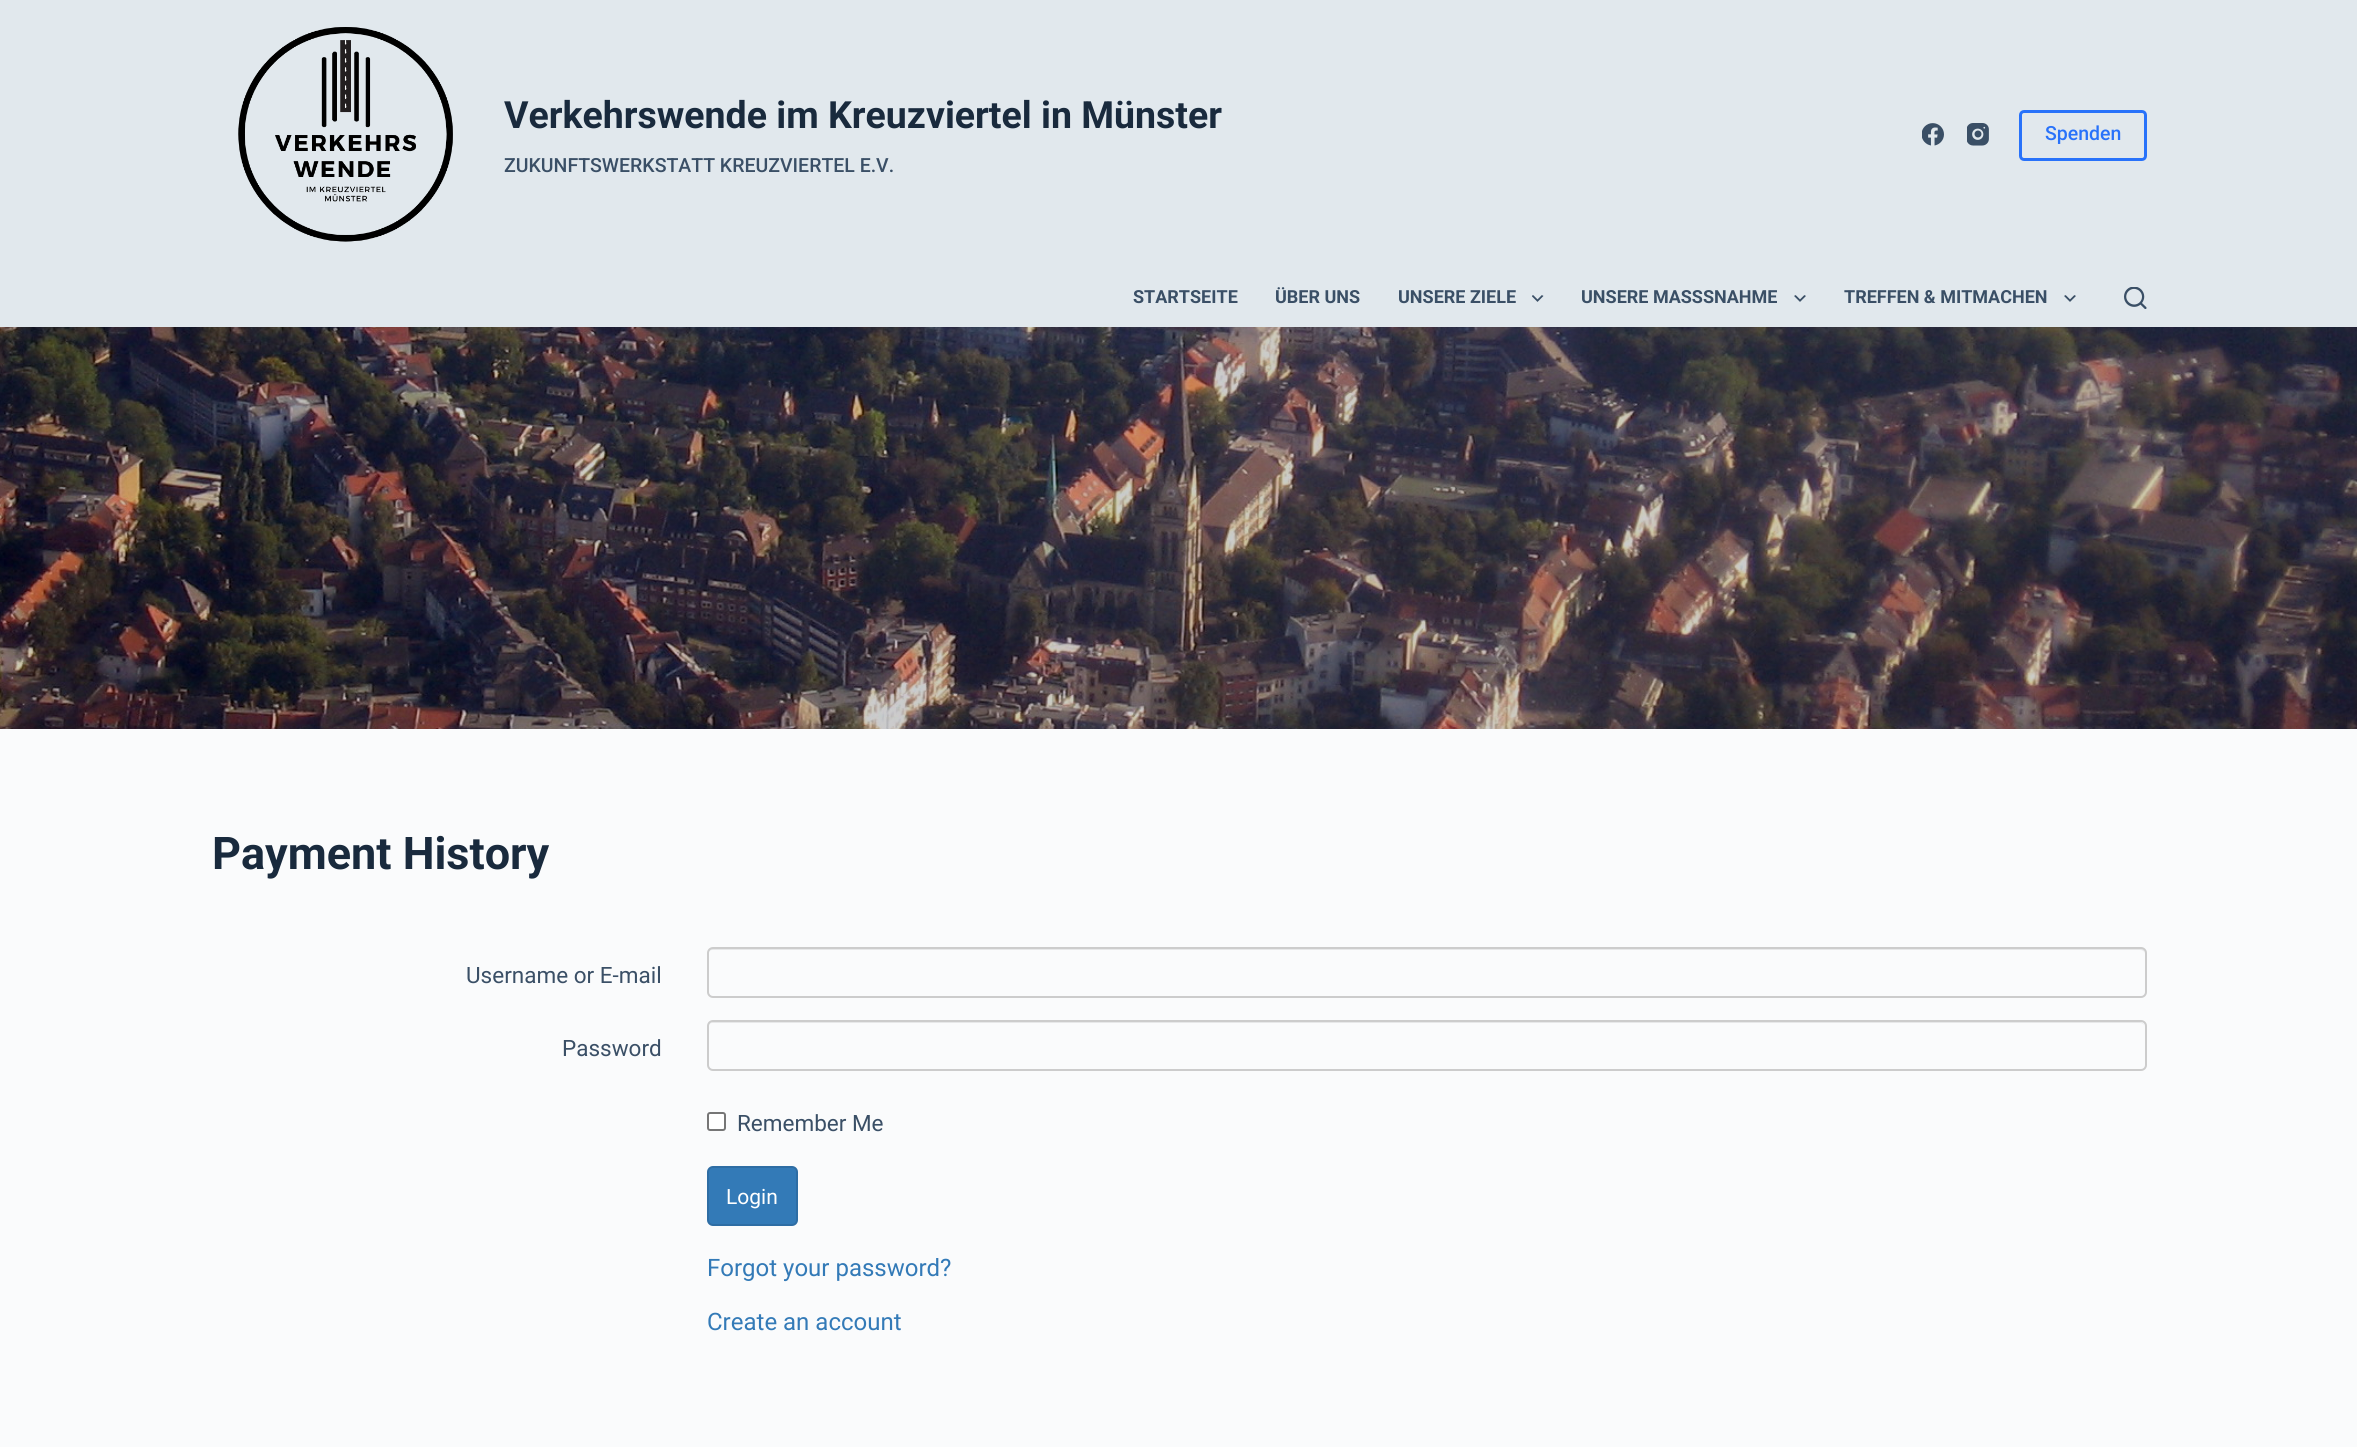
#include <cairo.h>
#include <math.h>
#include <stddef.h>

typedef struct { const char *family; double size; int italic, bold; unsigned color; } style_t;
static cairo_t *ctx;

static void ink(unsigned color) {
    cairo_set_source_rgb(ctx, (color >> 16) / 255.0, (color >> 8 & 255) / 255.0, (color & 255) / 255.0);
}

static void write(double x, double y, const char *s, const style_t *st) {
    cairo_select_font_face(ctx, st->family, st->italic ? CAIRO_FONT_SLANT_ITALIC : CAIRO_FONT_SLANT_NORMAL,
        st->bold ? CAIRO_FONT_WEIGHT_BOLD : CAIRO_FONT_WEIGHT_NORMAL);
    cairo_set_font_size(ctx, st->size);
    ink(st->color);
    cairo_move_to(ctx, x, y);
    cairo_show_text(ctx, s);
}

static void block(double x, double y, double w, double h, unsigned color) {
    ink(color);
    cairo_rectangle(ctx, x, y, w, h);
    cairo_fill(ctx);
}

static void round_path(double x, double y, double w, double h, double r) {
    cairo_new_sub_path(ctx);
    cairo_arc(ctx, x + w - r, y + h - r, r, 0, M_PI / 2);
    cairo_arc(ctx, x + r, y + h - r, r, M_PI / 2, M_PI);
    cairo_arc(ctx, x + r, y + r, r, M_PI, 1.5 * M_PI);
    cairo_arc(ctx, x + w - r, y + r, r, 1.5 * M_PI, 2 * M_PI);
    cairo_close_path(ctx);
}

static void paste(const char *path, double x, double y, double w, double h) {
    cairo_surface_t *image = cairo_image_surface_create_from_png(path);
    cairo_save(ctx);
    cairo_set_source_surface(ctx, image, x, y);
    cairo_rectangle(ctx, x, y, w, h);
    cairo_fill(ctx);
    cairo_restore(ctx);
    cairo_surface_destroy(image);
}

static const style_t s1 = {"Roboto", 37.5, 0, 1, 0x192a3d};
static const style_t s2 = {"Roboto Medium", 19.5, 0, 0, 0x3a4f66};
static const style_t s3 = {"Roboto Medium", 19.5, 0, 0, 0x2872fa};
static const style_t s4 = {"Roboto", 18, 0, 1, 0x3a4f66};
static const style_t s5 = {"Roboto", 45, 0, 1, 0x192a3d};
static const style_t s6 = {"Roboto", 22.5, 0, 0, 0x3a4f66};
static const style_t s7 = {"Roboto", 21, 0, 0, 0xffffff};
static const style_t s8 = {"Roboto", 24, 0, 0, 0x337ab7};

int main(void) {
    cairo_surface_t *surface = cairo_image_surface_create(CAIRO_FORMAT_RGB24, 2357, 1447);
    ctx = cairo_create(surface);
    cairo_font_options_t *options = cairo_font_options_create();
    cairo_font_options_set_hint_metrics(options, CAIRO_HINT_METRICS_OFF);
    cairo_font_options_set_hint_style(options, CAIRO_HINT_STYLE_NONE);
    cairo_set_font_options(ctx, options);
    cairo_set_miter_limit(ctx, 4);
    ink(0xfafbfc);
    cairo_paint(ctx);
    block(0, 0, 2357, 327, 0xe1e8ed);
    paste("pic1.png", 238, 27, 215, 215);
    write(504, 128, "Verkehrswende im Kreuzviertel in Münster", &s1);
    write(504, 172, "ZUKUNFTSWERKSTATT KREUZVIERTEL E.V.", &s2);
    paste("pic2.png", 1922, 123, 22, 23);
    paste("pic3.png", 1967, 123, 22, 23);
    round_path(2020.5, 111.5, 125, 48, 3.5);
    ink(0x2872fa);
    cairo_set_line_width(ctx, 3);
    cairo_stroke(ctx);
    write(2045, 140, "Spenden", &s3);
    write(1133, 303, "STARTSEITE", &s4);
    write(1275, 303, "ÜBER UNS", &s4);
    write(1398, 303, "UNSERE ZIELE", &s4);
    paste("pic4.png", 1532, 295, 12, 7);
    write(1581, 303, "UNSERE MASSSNAHME", &s4);
    paste("pic5.png", 1794, 295, 12, 7);
    write(1844, 303, "TREFFEN & MITMACHEN", &s4);
    paste("pic5.png", 2064, 295, 12, 7);
    paste("pic6.png", 2124, 287, 23, 22);
    paste("pic7.png", 0, 327, 2357, 402);
    write(212, 869, "Payment History", &s5);
    write(466, 983, "Username or E-mail", &s6);
    ink(0xe7e8e9);
    cairo_new_path(ctx);
    cairo_move_to(ctx, 712, 950);
    cairo_line_to(ctx, 2140, 950);
    cairo_curve_to(ctx, 2143, 950, 2145, 952, 2145, 954);
    cairo_curve_to(ctx, 2145, 951, 2143, 948, 2140, 948);
    cairo_line_to(ctx, 713, 948);
    cairo_curve_to(ctx, 710, 948, 708, 951, 708, 954);
    cairo_curve_to(ctx, 708, 952, 710, 950, 712, 950);
    cairo_close_path(ctx);
    cairo_fill(ctx);
    round_path(708, 948, 1438, 49, 5);
    ink(0xcccccc);
    cairo_set_line_width(ctx, 2);
    cairo_stroke(ctx);
    write(562, 1056, "Password", &s6);
    ink(0xe7e8e9);
    cairo_new_path(ctx);
    cairo_move_to(ctx, 712, 1023);
    cairo_line_to(ctx, 2140, 1023);
    cairo_curve_to(ctx, 2143, 1023, 2145, 1025, 2145, 1028);
    cairo_curve_to(ctx, 2145, 1025, 2143, 1022, 2140, 1022);
    cairo_line_to(ctx, 713, 1022);
    cairo_curve_to(ctx, 710, 1022, 708, 1025, 708, 1028);
    cairo_curve_to(ctx, 708, 1025, 710, 1023, 712, 1023);
    cairo_close_path(ctx);
    cairo_fill(ctx);
    round_path(708, 1021, 1438, 49, 5);
    ink(0xcccccc);
    cairo_stroke(ctx);
    ink(0xffffff);
    round_path(708, 1113, 17, 17, 2);
    cairo_fill_preserve(ctx);
    ink(0x767676);
    cairo_stroke(ctx);
    write(737, 1131, "Remember Me", &s6);
    ink(0x337ab7);
    round_path(708, 1167, 89, 58, 5);
    cairo_fill_preserve(ctx);
    ink(0x2e6da4);
    cairo_stroke(ctx);
    write(726, 1204, "Login", &s7);
    write(707, 1276, "Forgot your password?", &s8);
    write(707, 1330, "Create an account", &s8);
    cairo_surface_write_to_png(surface, "screenshot.png");
    cairo_font_options_destroy(options);
    cairo_destroy(ctx);
    cairo_surface_destroy(surface);
    return 0;
}
